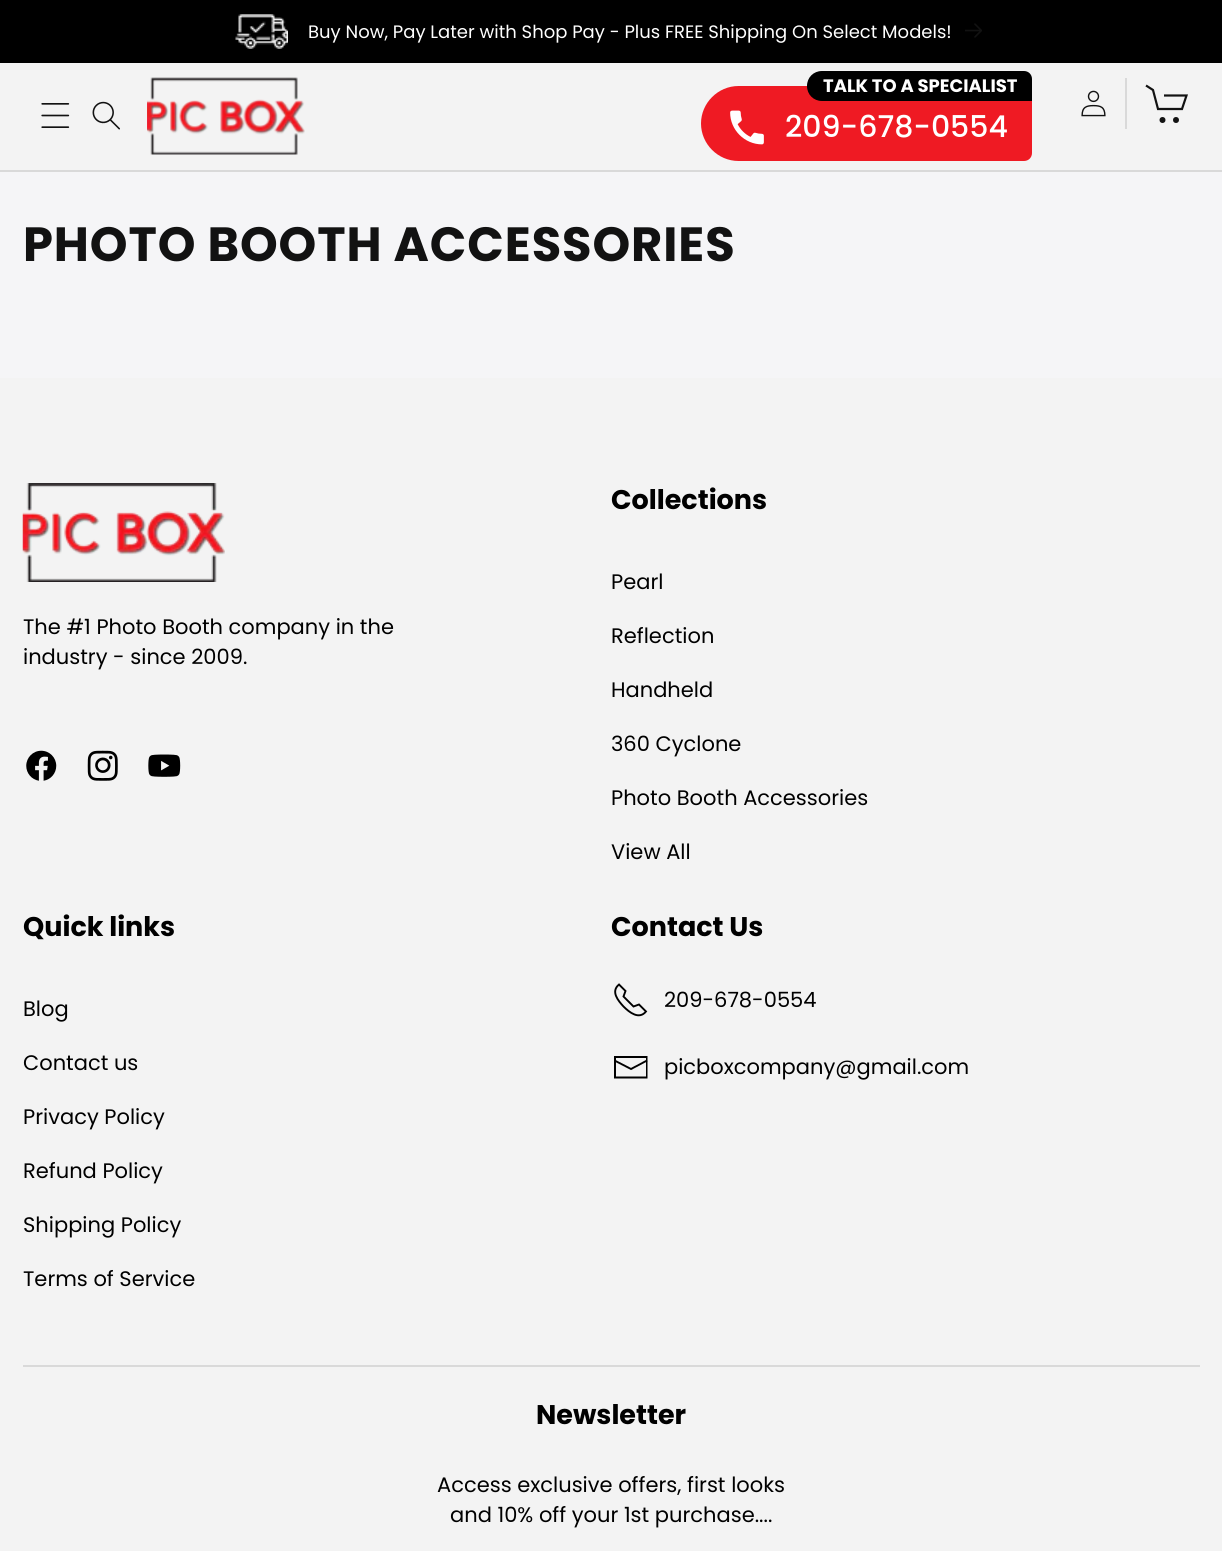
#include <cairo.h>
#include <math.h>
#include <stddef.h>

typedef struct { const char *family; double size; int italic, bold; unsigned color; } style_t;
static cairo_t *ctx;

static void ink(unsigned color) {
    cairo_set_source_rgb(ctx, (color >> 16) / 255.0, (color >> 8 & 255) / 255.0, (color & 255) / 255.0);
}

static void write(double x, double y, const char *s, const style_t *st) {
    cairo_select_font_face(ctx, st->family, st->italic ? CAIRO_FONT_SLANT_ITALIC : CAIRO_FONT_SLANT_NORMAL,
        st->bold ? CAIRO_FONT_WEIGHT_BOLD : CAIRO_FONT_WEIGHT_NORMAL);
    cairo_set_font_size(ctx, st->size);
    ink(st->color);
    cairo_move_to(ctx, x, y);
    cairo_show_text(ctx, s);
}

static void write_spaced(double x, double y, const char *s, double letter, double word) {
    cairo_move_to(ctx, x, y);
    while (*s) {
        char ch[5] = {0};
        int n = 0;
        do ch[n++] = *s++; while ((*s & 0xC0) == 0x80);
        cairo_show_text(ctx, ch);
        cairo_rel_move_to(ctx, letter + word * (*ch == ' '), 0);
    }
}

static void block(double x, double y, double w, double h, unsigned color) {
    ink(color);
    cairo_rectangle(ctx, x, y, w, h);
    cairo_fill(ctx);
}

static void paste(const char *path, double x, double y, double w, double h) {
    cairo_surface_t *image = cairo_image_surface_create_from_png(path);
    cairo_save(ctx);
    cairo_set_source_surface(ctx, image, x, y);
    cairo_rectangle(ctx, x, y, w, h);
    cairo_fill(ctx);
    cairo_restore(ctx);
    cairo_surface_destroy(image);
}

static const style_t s1 = {"Poppins", 18, 0, 0, 0xffffff};
static const style_t s2 = {"Poppins", 18, 0, 1, 0xffffff};
static const style_t s3 = {"Poppins Medium", 30, 0, 0, 0xffffff};
static const style_t s4 = {"Poppins", 21, 0, 0, 0x000000};
static const style_t s5 = {"Poppins", 27, 0, 1, 0x000000};

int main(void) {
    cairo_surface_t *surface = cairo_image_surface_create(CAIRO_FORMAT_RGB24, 1222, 1551);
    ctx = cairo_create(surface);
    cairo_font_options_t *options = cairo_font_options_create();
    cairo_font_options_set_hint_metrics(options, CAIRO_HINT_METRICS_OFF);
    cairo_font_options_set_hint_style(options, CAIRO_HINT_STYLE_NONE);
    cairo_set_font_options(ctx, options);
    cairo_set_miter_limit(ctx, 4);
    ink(0xf5f5f7);
    cairo_paint(ctx);
    block(0, 0, 1222, 63, 0x000000);
    paste("pic1.png", 235, 14, 53, 35);
    write(308, 38, "Buy Now, Pay Later with Shop Pay - Plus FREE Shipping On Select Models!", &s1);
    paste("pic2.png", 965, 23, 17, 15);
    block(0, 63, 1222, 107, 0xf3f3f3);
    block(0, 170, 1222, 2, 0xd9d9d9);
    paste("pic3.png", 41, 103, 29, 25);
    paste("pic4.png", 92, 101, 28, 29);
    paste("pic5.png", 147, 77, 158, 78);
    ink(0xef1a23);
    cairo_new_path(ctx);
    cairo_move_to(ctx, 738.5, 86);
    cairo_line_to(ctx, 1032, 86);
    cairo_line_to(ctx, 1032, 153);
    cairo_curve_to(ctx, 1032, 157.5, 1028.5, 161, 1024, 161);
    cairo_line_to(ctx, 738.5, 161);
    cairo_curve_to(ctx, 718, 161, 701, 144, 701, 123.5);
    cairo_curve_to(ctx, 701, 103, 718, 86, 738.5, 86);
    cairo_close_path(ctx);
    cairo_fill(ctx);
    ink(0x000000);
    cairo_new_path(ctx);
    cairo_move_to(ctx, 822, 71);
    cairo_line_to(ctx, 1024, 71);
    cairo_curve_to(ctx, 1028.5, 71, 1032, 74.5, 1032, 79);
    cairo_line_to(ctx, 1032, 101);
    cairo_line_to(ctx, 822, 101);
    cairo_curve_to(ctx, 813.5, 101, 807, 94.5, 807, 86);
    cairo_curve_to(ctx, 807, 77.5, 813.5, 71, 822, 71);
    cairo_close_path(ctx);
    cairo_fill(ctx);
    write(823, 92, "TALK TO A SPECIALIST", &s2);
    paste("pic6.png", 730, 110, 34, 35);
    write(785, 137, "209-678-0554", &s3);
    block(1125, 78, 2, 51, 0xd9d9d9);
    paste("pic7.png", 1081, 90, 25, 27);
    ink(0x121212);
    cairo_arc(ctx, 1162.5, 120, 3, 0, 2 * M_PI);
    cairo_fill(ctx);
    cairo_arc(ctx, 1176, 120, 3, 0, 2 * M_PI);
    cairo_fill(ctx);
    cairo_new_path(ctx);
    cairo_move_to(ctx, 1146, 85.5);
    cairo_line_to(ctx, 1153, 90);
    cairo_line_to(ctx, 1158, 109);
    cairo_line_to(ctx, 1182, 109);
    cairo_line_to(ctx, 1186.5, 95.5);
    cairo_line_to(ctx, 1164, 95.5);
    cairo_set_line_width(ctx, 2.2);
    cairo_stroke(ctx);
    cairo_select_font_face(ctx, "Poppins", CAIRO_FONT_SLANT_NORMAL, CAIRO_FONT_WEIGHT_BOLD);
    cairo_set_font_size(ctx, 48);
    write_spaced(23, 261, "PHOTO BOOTH ACCESSORIES", 0.9, 0);
    block(0, 378, 1222, 1173, 0xf3f3f3);
    paste("pic8.png", 22, 483, 203, 99);
    write(23, 634, "The #1 Photo Booth company in the", &s4);
    write(23, 664, "industry - since 2009.", &s4);
    paste("pic9.png", 26, 750, 31, 31);
    paste("pic10.png", 87, 750, 31, 31);
    paste("pic11.png", 148, 754, 33, 23);
    write(611, 509, "Collections", &s5);
    write(611, 589, "Pearl", &s4);
    write(611, 643, "Reflection", &s4);
    write(611, 697, "Handheld", &s4);
    write(611, 751, "360 Cyclone", &s4);
    write(611, 805, "Photo Booth Accessories", &s4);
    write(611, 859, "View All", &s4);
    write(23, 936, "Quick links", &s5);
    write(23, 1016, "Blog", &s4);
    write(23, 1070, "Contact us", &s4);
    write(23, 1124, "Privacy Policy", &s4);
    write(23, 1178, "Refund Policy", &s4);
    write(23, 1232, "Shipping Policy", &s4);
    write(23, 1286, "Terms of Service", &s4);
    write(611, 936, "Contact Us", &s5);
    cairo_new_path(ctx);
    cairo_move_to(ctx, 623.5, 1006.5);
    cairo_curve_to(ctx, 629.5, 1012.5, 639, 1020, 646, 1011.5);
    cairo_line_to(ctx, 639, 1004.5);
    cairo_line_to(ctx, 633.5, 1006.5);
    cairo_line_to(ctx, 623.5, 996.5);
    cairo_line_to(ctx, 625.5, 991);
    cairo_line_to(ctx, 619, 984.5);
    cairo_curve_to(ctx, 610.5, 991.5, 618, 1000.5, 623.5, 1006.5);
    cairo_set_line_width(ctx, 1.9);
    cairo_stroke(ctx);
    write(664, 1007, "209-678-0554", &s4);
    cairo_new_path(ctx);
    cairo_move_to(ctx, 614.5, 1060.5);
    cairo_line_to(ctx, 631, 1069);
    cairo_line_to(ctx, 647, 1060.5);
    cairo_stroke(ctx);
    cairo_new_path(ctx);
    cairo_move_to(ctx, 614, 1056);
    cairo_line_to(ctx, 614, 1078.5);
    cairo_line_to(ctx, 647.5, 1078.5);
    cairo_line_to(ctx, 647.5, 1056);
    cairo_close_path(ctx);
    cairo_move_to(ctx, 646, 1076.5);
    cairo_line_to(ctx, 616, 1076.5);
    cairo_line_to(ctx, 616, 1058);
    cairo_line_to(ctx, 646, 1058);
    cairo_close_path(ctx);
    cairo_fill(ctx);
    write(664, 1074, "picboxcompany@gmail.com", &s4);
    block(23, 1365, 1177, 2, 0xd9d9d9);
    write(536, 1424, "Newsletter", &s5);
    write(437, 1492, "Access exclusive offers, first looks", &s4);
    write(450, 1522, "and 10% off your 1st purchase....", &s4);
    cairo_surface_write_to_png(surface, "screenshot.png");
    cairo_font_options_destroy(options);
    cairo_destroy(ctx);
    cairo_surface_destroy(surface);
    return 0;
}
